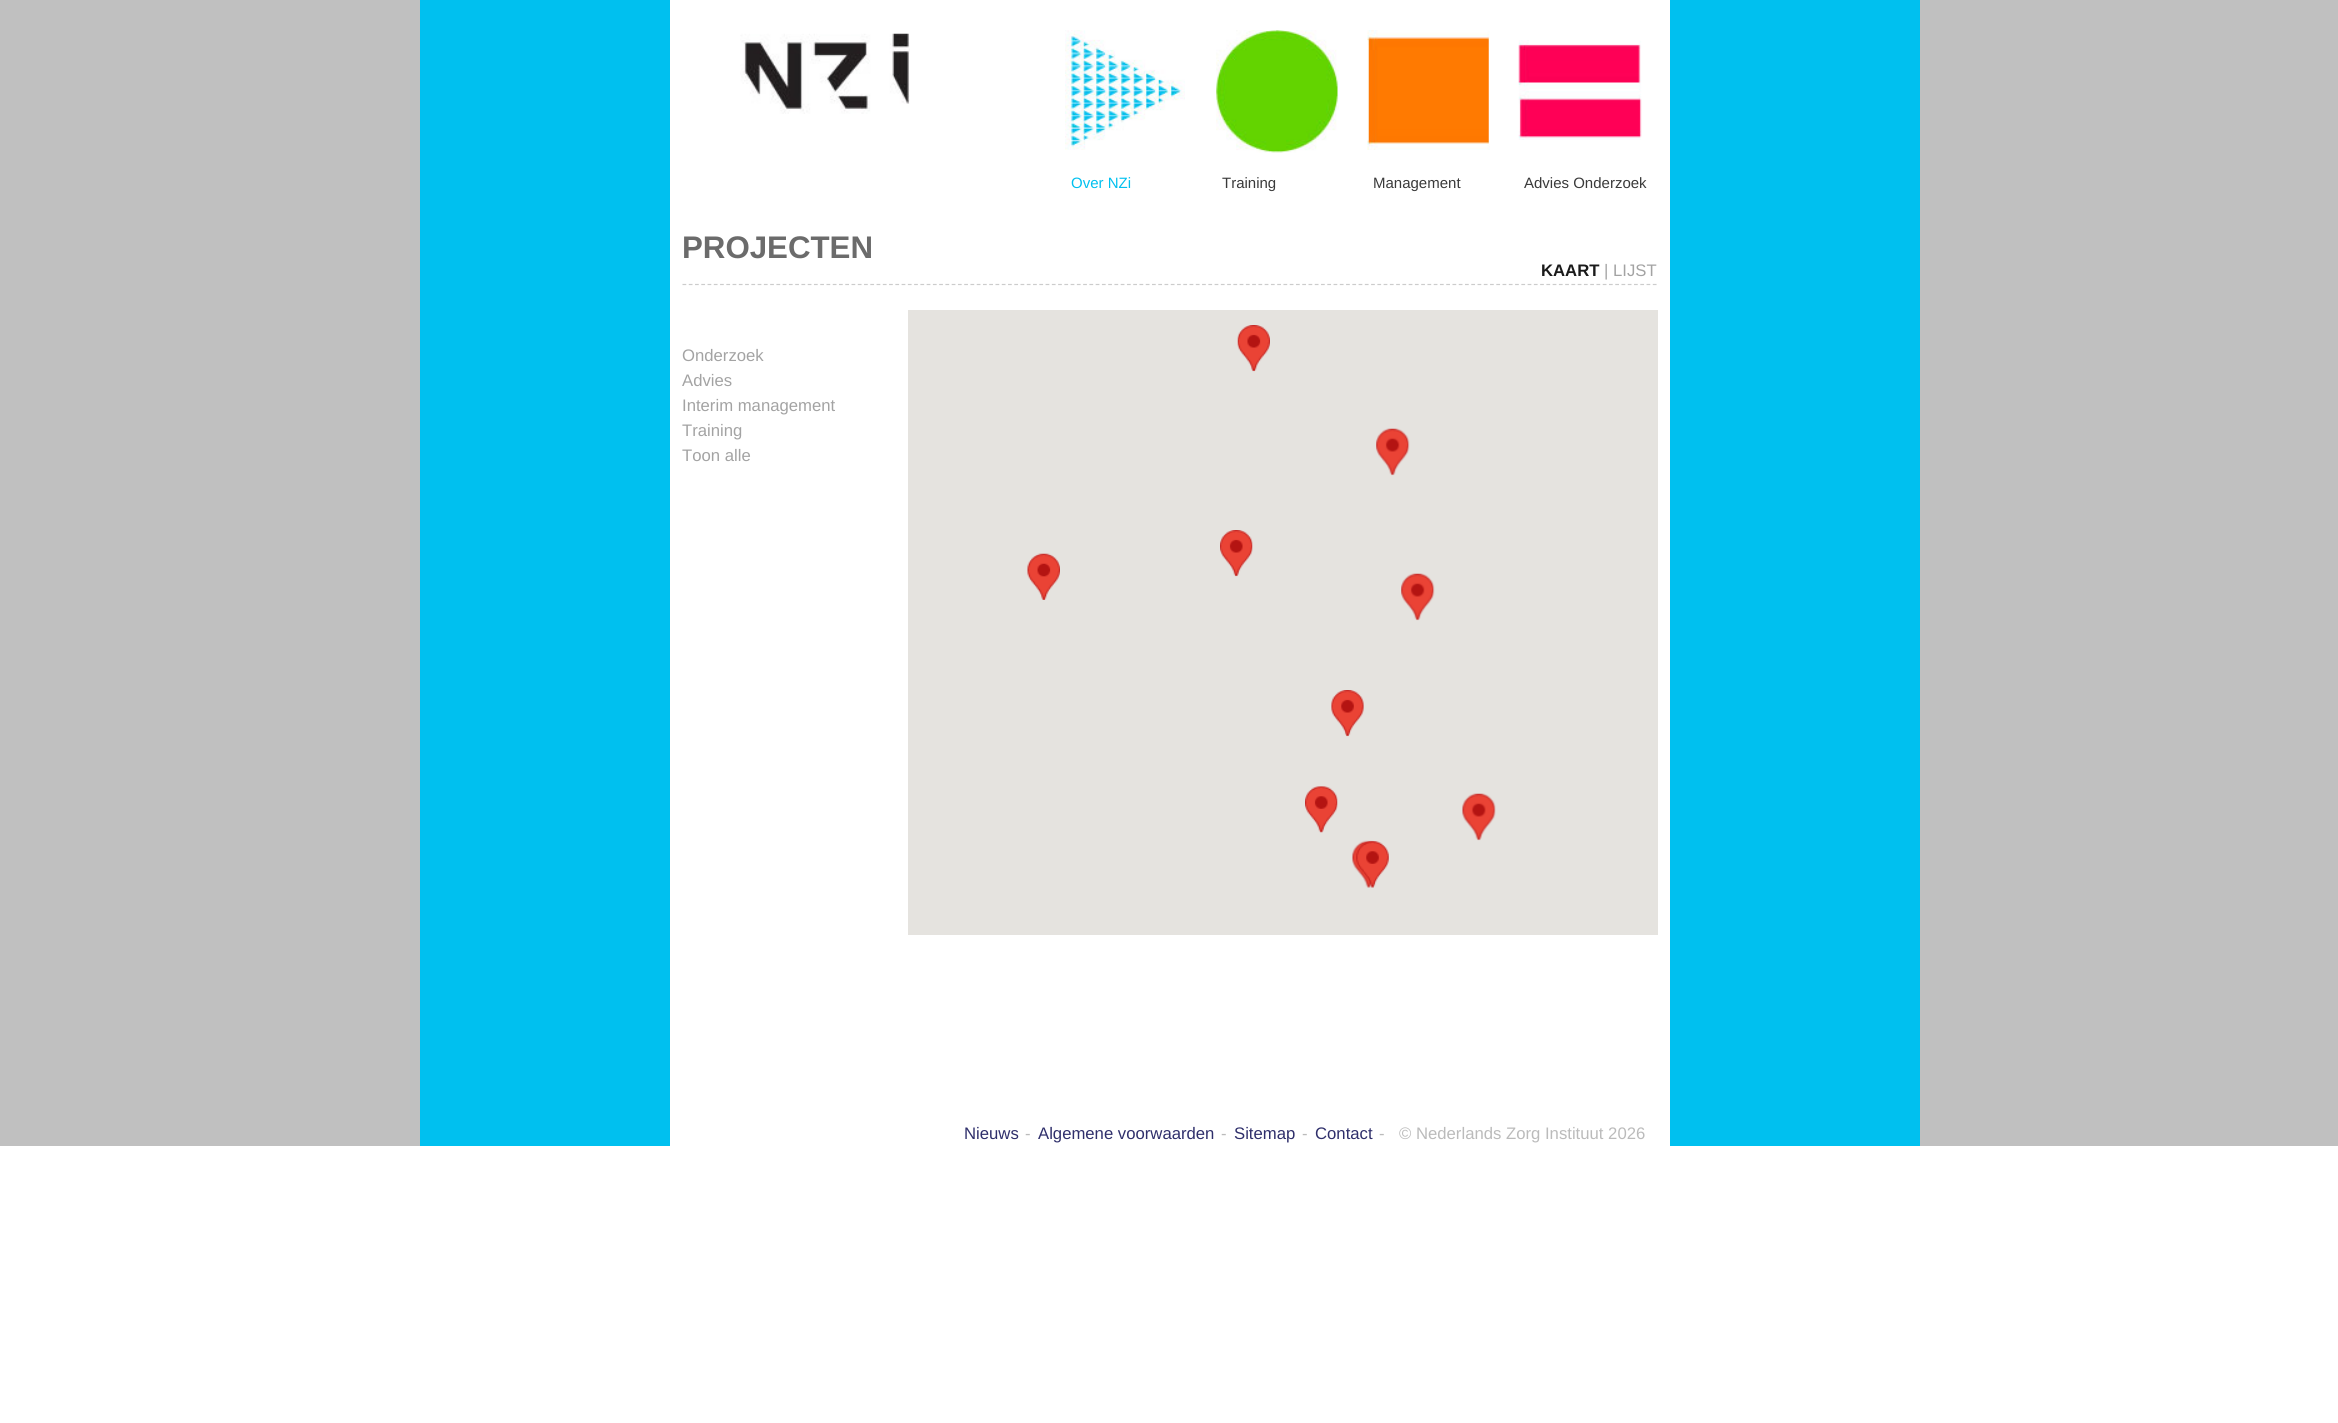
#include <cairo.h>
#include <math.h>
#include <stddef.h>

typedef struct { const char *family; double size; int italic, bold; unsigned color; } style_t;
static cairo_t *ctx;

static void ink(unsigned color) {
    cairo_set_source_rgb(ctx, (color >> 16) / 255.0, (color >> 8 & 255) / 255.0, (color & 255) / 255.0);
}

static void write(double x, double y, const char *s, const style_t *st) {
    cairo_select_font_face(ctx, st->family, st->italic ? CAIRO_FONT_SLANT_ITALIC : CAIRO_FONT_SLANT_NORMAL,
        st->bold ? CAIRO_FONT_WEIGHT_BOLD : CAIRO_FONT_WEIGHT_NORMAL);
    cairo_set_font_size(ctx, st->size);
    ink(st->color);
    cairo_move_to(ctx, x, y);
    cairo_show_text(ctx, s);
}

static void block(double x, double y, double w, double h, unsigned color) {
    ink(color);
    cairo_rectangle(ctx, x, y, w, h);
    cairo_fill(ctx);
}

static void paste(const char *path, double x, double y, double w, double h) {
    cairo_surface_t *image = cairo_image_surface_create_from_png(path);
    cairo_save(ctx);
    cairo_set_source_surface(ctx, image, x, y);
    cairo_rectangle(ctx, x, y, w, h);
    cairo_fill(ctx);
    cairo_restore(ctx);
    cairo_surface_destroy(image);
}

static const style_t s1 = {"Liberation Sans", 15, 0, 0, 0x00c0ef};
static const style_t s2 = {"Liberation Sans", 15, 0, 0, 0x3a3a3a};
static const style_t s3 = {"Liberation Sans", 31.25, 0, 1, 0x6b6b6b};
static const style_t s4 = {"Liberation Sans", 16.7, 0, 1, 0x1a1a1a};
static const style_t s5 = {"Liberation Sans", 16.7, 0, 0, 0xa3a3a3};
static const style_t s6 = {"Liberation Sans", 16.7, 0, 0, 0x2f2f6b};
static const style_t s7 = {"Liberation Sans", 16.7, 0, 0, 0xbbbbbb};

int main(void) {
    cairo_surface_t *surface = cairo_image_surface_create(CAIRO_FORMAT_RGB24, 2338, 1423);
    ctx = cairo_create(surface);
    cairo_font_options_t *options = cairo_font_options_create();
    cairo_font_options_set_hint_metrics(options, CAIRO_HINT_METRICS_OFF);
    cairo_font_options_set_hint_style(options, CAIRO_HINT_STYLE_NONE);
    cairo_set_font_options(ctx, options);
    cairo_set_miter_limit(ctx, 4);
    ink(0xffffff);
    cairo_paint(ctx);
    block(0, 0, 2338, 1146, 0xc0c0c0);
    block(670, 0, 1000, 1146, 0xffffff);
    block(420, 0, 250, 1146, 0x00c0ef);
    block(1670, 0, 250, 1146, 0x00c0ef);
    paste("pic1.png", 740, 33, 170, 81);
    paste("pic2.png", 1065, 30, 120, 120);
    write(1071, 188, "Over NZi", &s1);
    paste("pic3.png", 1216, 30, 123, 123);
    write(1222, 188, "Training", &s2);
    paste("pic4.png", 1367, 30, 123, 120);
    write(1373, 188, "Management", &s2);
    paste("pic5.png", 1518, 40, 124, 100);
    write(1524, 188, "Advies Onderzoek", &s2);
    write(682, 258, "PROJECTEN", &s3);
    cairo_new_path(ctx);
    cairo_move_to(ctx, 682.5, 284.5);
    cairo_line_to(ctx, 1657.5, 284.5);
    ink(0xcccccc);
    cairo_set_line_width(ctx, 1.2);
    cairo_set_dash(ctx, (double[]){3.75, 2.51}, 2, 0);
    cairo_stroke(ctx);
    write(1541, 276, "KAART", &s4);
    write(1604, 276, "| LIJST", &s5);
    write(682, 361, "Onderzoek", &s5);
    write(682, 386, "Advies", &s5);
    write(682, 411, "Interim management", &s5);
    write(682, 436, "Training", &s5);
    write(682, 461, "Toon alle", &s5);
    block(908, 310, 750, 625, 0xe5e3df);
    paste("pic6.png", 1237, 325, 33, 47);
    paste("pic7.png", 1376, 428, 34, 48);
    paste("pic8.png", 1027, 553, 33, 47);
    paste("pic9.png", 1220, 530, 33, 47);
    paste("pic10.png", 1401, 573, 34, 48);
    paste("pic11.png", 1331, 690, 33, 47);
    paste("pic12.png", 1305, 786, 33, 47);
    paste("pic13.png", 1462, 793, 34, 48);
    paste("pic14.png", 1352, 840, 30, 48);
    paste("pic15.png", 1356, 841, 33, 47);
    write(964, 1139, "Nieuws", &s6);
    write(1025, 1139, "-", &s7);
    write(1038, 1139, "Algemene voorwaarden", &s6);
    write(1221, 1139, "-", &s7);
    write(1234, 1139, "Sitemap", &s6);
    write(1302, 1139, "-", &s7);
    write(1315, 1139, "Contact", &s6);
    write(1379, 1139, "-", &s7);
    write(1399, 1139, "© Nederlands Zorg Instituut 2026", &s7);
    cairo_surface_write_to_png(surface, "screenshot.png");
    cairo_font_options_destroy(options);
    cairo_destroy(ctx);
    cairo_surface_destroy(surface);
    return 0;
}
